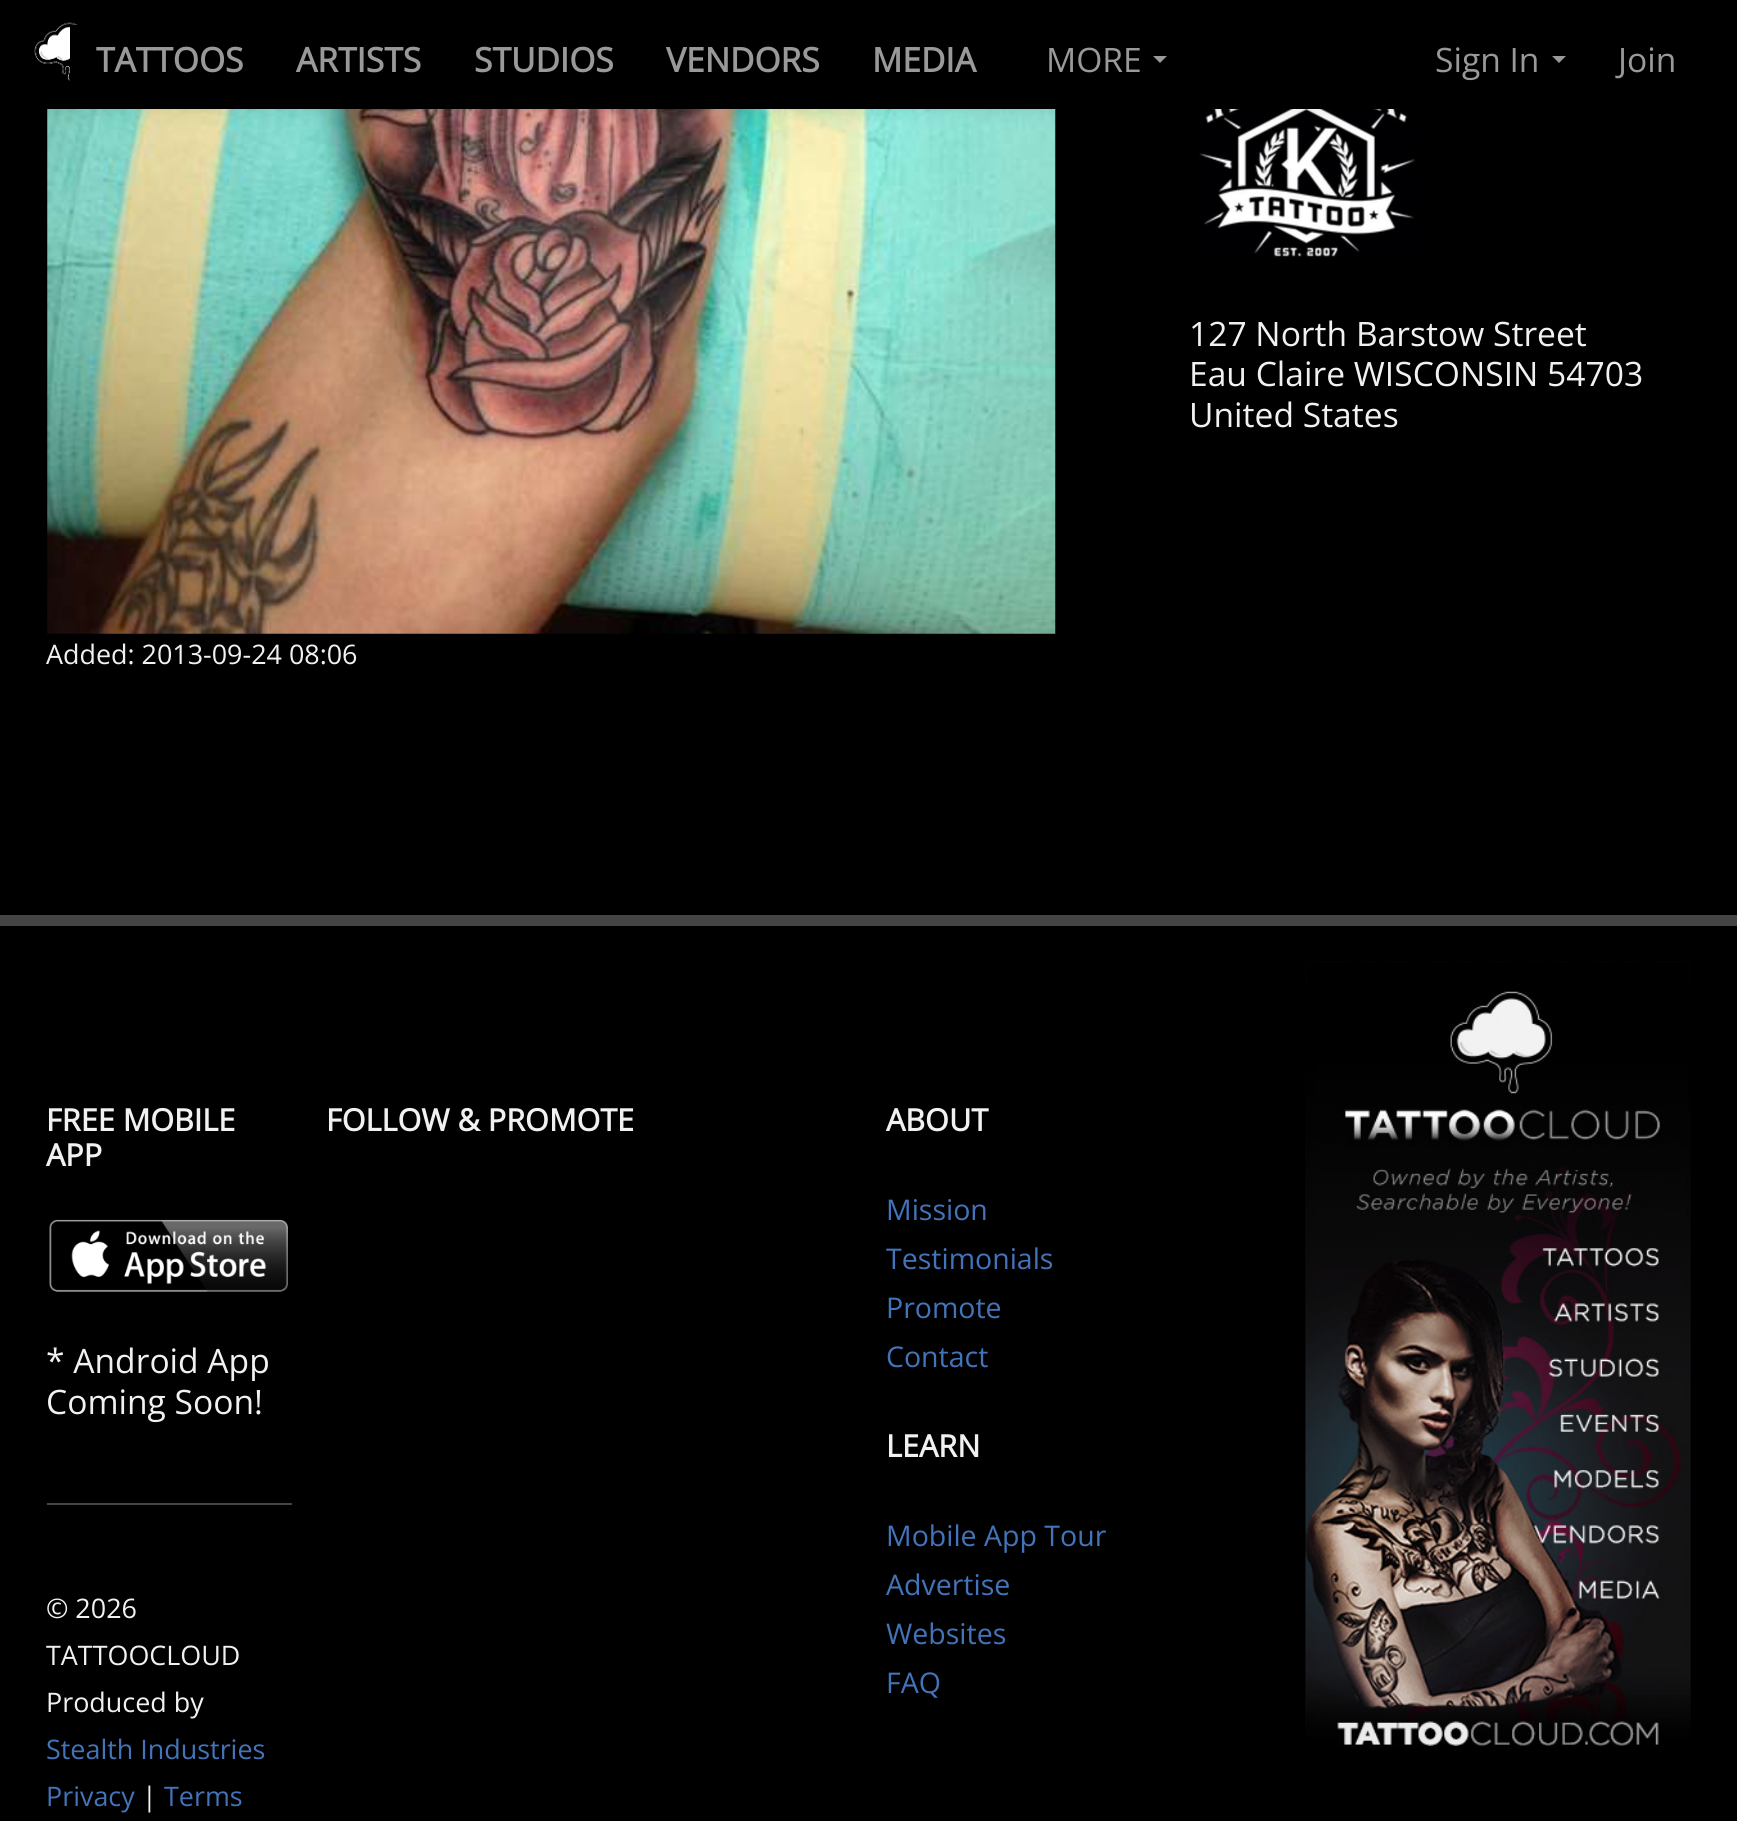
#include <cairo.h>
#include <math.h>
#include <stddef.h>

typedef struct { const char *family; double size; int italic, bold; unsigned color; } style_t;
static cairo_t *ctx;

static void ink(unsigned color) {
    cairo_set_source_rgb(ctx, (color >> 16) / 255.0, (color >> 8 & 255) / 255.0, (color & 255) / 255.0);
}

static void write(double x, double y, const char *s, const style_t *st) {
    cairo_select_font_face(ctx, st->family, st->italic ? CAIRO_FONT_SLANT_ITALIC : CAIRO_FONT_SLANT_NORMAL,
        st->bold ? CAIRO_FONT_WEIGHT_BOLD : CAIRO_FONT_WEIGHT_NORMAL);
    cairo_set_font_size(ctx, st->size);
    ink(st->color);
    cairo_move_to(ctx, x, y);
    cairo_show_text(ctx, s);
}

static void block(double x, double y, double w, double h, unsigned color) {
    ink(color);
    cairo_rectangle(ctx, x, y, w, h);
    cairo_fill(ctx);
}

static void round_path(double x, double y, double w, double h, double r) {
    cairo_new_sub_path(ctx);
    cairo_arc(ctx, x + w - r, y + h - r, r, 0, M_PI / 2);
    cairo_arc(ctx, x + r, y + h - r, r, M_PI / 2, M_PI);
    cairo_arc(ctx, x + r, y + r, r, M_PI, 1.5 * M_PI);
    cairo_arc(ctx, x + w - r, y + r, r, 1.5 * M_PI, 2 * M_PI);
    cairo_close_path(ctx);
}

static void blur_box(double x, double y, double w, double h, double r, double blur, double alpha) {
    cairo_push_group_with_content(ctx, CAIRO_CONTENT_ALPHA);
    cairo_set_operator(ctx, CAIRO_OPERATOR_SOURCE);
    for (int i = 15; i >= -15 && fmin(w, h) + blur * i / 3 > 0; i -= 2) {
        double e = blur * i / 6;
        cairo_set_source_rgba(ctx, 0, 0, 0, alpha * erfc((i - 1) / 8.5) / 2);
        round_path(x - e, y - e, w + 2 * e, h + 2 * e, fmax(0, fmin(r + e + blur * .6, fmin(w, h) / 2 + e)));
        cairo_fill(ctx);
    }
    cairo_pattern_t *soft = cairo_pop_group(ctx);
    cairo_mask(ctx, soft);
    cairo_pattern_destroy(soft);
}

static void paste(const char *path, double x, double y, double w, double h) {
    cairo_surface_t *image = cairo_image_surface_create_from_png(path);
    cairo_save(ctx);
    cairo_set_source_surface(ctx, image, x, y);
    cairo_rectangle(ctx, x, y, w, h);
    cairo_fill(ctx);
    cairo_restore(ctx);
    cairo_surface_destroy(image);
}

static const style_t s1 = {"Open Sans", 33.6, 0, 1, 0x999999};
static const style_t s2 = {"Open Sans", 33.6, 0, 0, 0x999999};
static const style_t s3 = {"Open Sans", 33.6, 0, 0, 0xf1f1f1};
static const style_t s4 = {"Open Sans", 26.9, 0, 0, 0xf1f1f1};
static const style_t s5 = {"Open Sans", 30.6, 0, 1, 0xf1f1f1};
static const style_t s6 = {"Open Sans", 26.9, 0, 0, 0x4373b9};
static const style_t s7 = {"Open Sans", 28.5, 0, 0, 0x4373b9};

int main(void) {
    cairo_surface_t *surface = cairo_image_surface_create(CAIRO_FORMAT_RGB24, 1737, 1821);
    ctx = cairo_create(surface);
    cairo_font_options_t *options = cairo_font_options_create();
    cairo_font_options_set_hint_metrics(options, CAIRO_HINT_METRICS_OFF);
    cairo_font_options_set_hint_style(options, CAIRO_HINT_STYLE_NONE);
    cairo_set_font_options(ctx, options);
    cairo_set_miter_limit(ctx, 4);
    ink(0x000000);
    cairo_paint(ctx);
    paste("pic2.png", 1199, 109, 217, 150);
    paste("pic3.png", 47, 109, 1009, 525);
    blur_box(0, 2, 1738, 108, 0, 9, 0.1);
    paste("pic1.png", 34, 22, 43, 59);
    block(70, 25, 7, 56, 0x000000);
    write(96, 72, "TATTOOS", &s1);
    write(296, 72, "ARTISTS", &s1);
    write(474, 72, "STUDIOS", &s1);
    write(666, 72, "VENDORS", &s1);
    write(872, 72, "MEDIA", &s1);
    write(1046, 72, "MORE", &s2);
    cairo_new_path(ctx);
    cairo_move_to(ctx, 1153, 56);
    cairo_line_to(ctx, 1167, 56);
    cairo_line_to(ctx, 1160, 63);
    cairo_close_path(ctx);
    cairo_fill(ctx);
    write(1435, 72, "Sign In", &s2);
    cairo_new_path(ctx);
    cairo_move_to(ctx, 1552, 56);
    cairo_line_to(ctx, 1566, 56);
    cairo_line_to(ctx, 1559, 63);
    cairo_close_path(ctx);
    cairo_fill(ctx);
    write(1618, 72, "Join", &s2);
    write(1189, 346, "127 North Barstow Street", &s3);
    write(1189, 386, "Eau Claire WISCONSIN 54703", &s3);
    write(1189, 427, "United States", &s3);
    write(46, 664, "Added: 2013-09-24 08:06", &s4);
    block(0, 915, 1737, 11, 0x444444);
    write(46, 1131, "FREE MOBILE", &s5);
    write(46, 1166, "APP", &s5);
    paste("pic4.png", 49, 1219, 239, 73);
    write(46, 1373, "* Android App", &s3);
    write(46, 1414, "Coming Soon!", &s3);
    block(47, 1503, 245, 2, 0x444444);
    write(46, 1618, "© 2026", &s4);
    write(46, 1665, "TATTOOCLOUD", &s4);
    write(46, 1712, "Produced by", &s4);
    write(46, 1759, "Stealth Industries", &s6);
    write(46, 1806, "Privacy", &s6);
    write(142, 1806, "|", &s4);
    write(164, 1806, "Terms", &s6);
    write(326, 1131, "FOLLOW & PROMOTE", &s5);
    write(886, 1131, "ABOUT", &s5);
    write(886, 1220, "Mission", &s7);
    write(886, 1269, "Testimonials", &s7);
    write(886, 1318, "Promote", &s7);
    write(886, 1367, "Contact", &s7);
    write(886, 1457, "LEARN", &s5);
    write(886, 1546, "Mobile App Tour", &s7);
    write(886, 1595, "Advertise", &s7);
    write(886, 1644, "Websites", &s7);
    write(886, 1693, "FAQ", &s7);
    paste("pic5.png", 1305, 961, 386, 786);
    cairo_surface_write_to_png(surface, "screenshot.png");
    cairo_font_options_destroy(options);
    cairo_destroy(ctx);
    cairo_surface_destroy(surface);
    return 0;
}
